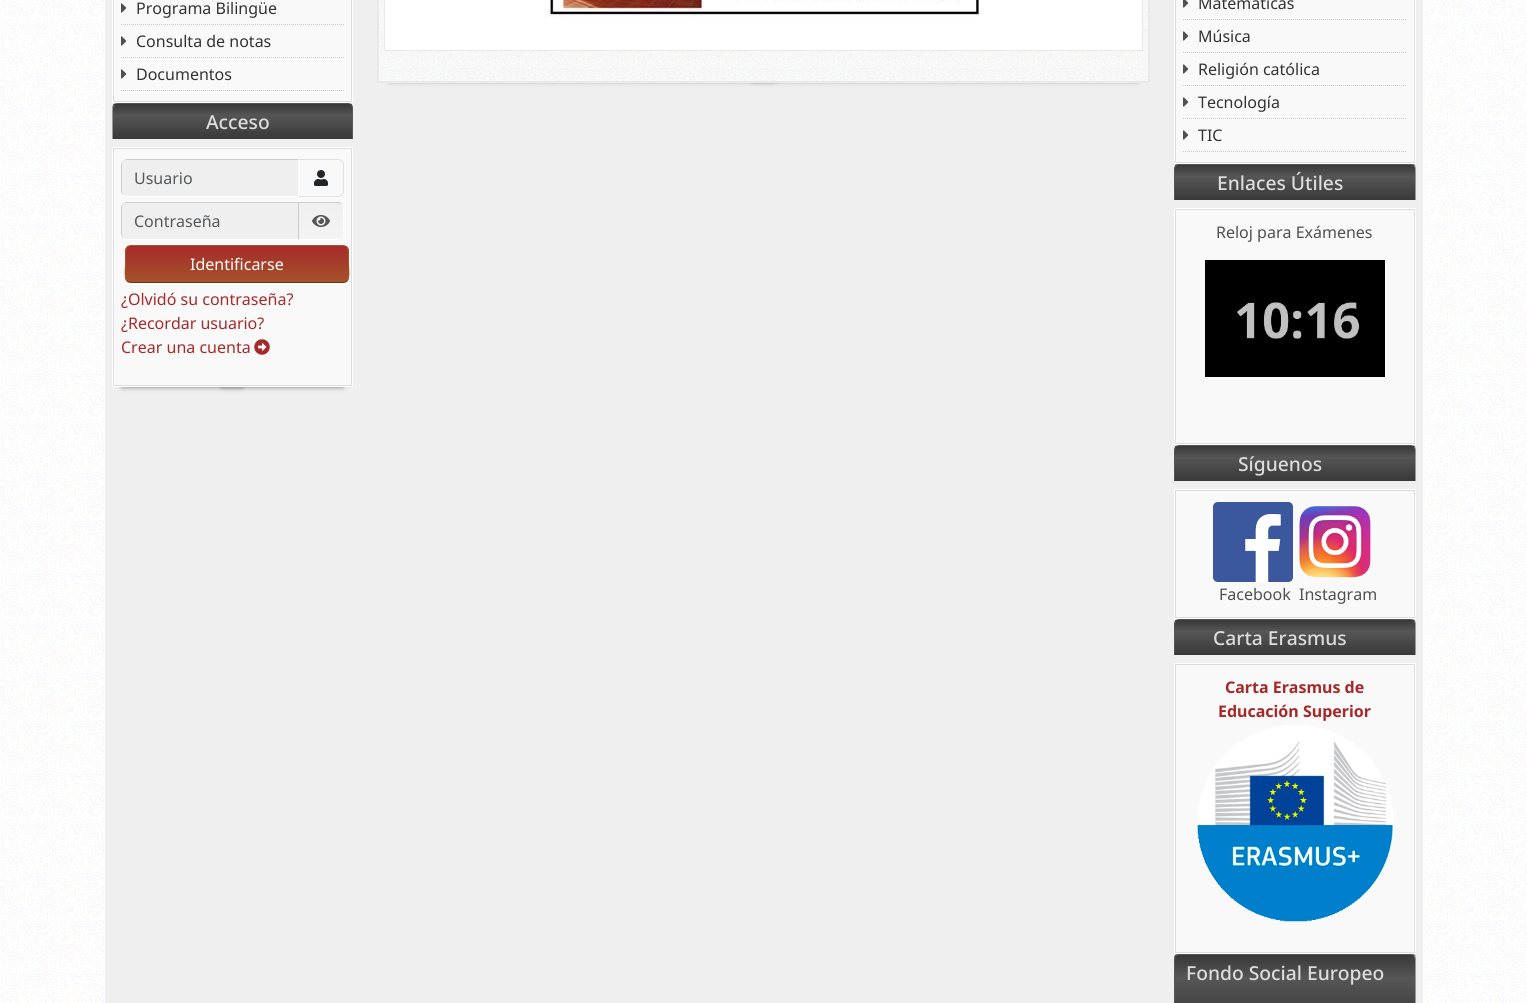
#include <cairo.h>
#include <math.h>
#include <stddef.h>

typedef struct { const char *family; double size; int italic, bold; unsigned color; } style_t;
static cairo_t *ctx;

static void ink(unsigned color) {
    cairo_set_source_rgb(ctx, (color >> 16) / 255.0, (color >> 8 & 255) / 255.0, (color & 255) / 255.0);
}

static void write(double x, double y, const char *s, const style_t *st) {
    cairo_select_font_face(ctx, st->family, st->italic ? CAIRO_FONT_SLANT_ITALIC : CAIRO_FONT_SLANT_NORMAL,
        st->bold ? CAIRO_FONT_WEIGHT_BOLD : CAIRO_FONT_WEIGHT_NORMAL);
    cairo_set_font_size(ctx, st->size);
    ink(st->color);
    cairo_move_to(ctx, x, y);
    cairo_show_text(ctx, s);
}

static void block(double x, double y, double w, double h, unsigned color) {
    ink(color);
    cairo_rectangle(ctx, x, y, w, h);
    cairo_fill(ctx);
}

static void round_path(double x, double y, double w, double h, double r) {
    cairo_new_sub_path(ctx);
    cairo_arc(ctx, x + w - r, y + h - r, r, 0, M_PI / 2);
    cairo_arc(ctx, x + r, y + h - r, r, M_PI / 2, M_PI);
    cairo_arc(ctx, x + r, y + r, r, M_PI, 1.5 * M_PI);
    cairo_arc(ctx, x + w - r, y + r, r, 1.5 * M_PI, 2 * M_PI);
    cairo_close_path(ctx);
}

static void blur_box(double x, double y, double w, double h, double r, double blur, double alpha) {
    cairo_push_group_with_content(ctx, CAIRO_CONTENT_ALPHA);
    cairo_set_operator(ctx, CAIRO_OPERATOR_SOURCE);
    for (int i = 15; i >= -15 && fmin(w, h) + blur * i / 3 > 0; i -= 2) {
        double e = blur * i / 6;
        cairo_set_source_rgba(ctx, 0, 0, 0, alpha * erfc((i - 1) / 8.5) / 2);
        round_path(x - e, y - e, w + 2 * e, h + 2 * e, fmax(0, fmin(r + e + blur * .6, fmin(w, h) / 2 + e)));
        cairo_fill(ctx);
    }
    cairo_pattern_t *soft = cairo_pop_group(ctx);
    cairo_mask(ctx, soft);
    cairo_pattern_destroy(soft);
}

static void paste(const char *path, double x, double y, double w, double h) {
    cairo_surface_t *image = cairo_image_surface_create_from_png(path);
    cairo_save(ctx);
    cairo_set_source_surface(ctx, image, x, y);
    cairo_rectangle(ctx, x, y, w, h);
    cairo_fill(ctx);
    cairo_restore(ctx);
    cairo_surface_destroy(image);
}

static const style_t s1 = {"Noto Sans", 16, 0, 0, 0x333333};
static const style_t s2 = {"Noto Sans Medium", 19.25, 0, 0, 0xdddddd};
static const style_t s3 = {"Noto Sans", 16, 0, 0, 0x55585b};
static const style_t s4 = {"Noto Sans", 16, 0, 0, 0xffffff};
static const style_t s5 = {"Noto Sans", 16, 0, 0, 0xa52a2a};
static const style_t s6 = {"Noto Sans", 16, 0, 0, 0x505050};
static const style_t s7 = {"Noto Sans", 16, 0, 1, 0xa52a2a};

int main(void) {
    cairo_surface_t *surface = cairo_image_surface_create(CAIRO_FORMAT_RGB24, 1527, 1003);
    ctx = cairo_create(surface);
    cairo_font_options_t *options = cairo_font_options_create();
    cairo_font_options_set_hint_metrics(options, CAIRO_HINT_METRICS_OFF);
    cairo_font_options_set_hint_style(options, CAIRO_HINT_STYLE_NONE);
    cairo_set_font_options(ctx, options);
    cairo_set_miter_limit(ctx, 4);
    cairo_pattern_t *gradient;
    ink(0xffffff);
    cairo_paint(ctx);
    paste("pic1.png", 0, 0, 1527, 1003);
    ink(0xefefef);
    cairo_rectangle(ctx, 104.5, -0.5, 1319, 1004);
    cairo_fill_preserve(ctx);
    ink(0xffffff);
    cairo_set_line_width(ctx, 1);
    cairo_stroke(ctx);
    cairo_rectangle(ctx, 112.5, -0.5, 240, 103);
    cairo_stroke(ctx);
    ink(0xf9f9f9);
    cairo_rectangle(ctx, 113.5, -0.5, 238, 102);
    cairo_fill_preserve(ctx);
    ink(0xdddddd);
    cairo_stroke(ctx);
    paste("pic2.png", 121, 3, 6, 10);
    cairo_new_path(ctx);
    cairo_move_to(ctx, 121, 24.5);
    cairo_line_to(ctx, 344, 24.5);
    ink(0xcccccc);
    cairo_set_dash(ctx, (double[]){1, 1}, 2, 0);
    cairo_stroke(ctx);
    write(136, 14, "Programa Bilingüe", &s1);
    paste("pic2.png", 121, 36, 6, 10);
    cairo_new_path(ctx);
    cairo_move_to(ctx, 121, 57.5);
    cairo_line_to(ctx, 344, 57.5);
    ink(0xcccccc);
    cairo_stroke(ctx);
    write(136, 47, "Consulta de notas", &s1);
    paste("pic2.png", 121, 69, 6, 10);
    cairo_new_path(ctx);
    cairo_move_to(ctx, 121, 90.5);
    cairo_line_to(ctx, 344, 90.5);
    ink(0xcccccc);
    cairo_stroke(ctx);
    write(136, 80, "Documentos", &s1);
    gradient = cairo_pattern_create_linear(233, 104, 233, 139);
    cairo_pattern_add_color_stop_rgba(gradient, 0, 0.22, 0.22, 0.22, 1);
    cairo_pattern_add_color_stop_rgba(gradient, 0.33, 0.337, 0.337, 0.337, 1);
    cairo_pattern_add_color_stop_rgba(gradient, 1, 0.22, 0.22, 0.22, 1);
    cairo_set_source(ctx, gradient);
    cairo_pattern_destroy(gradient);
    cairo_rectangle(ctx, 113, 104, 239, 35);
    cairo_fill(ctx);
    ink(0x555555);
    cairo_new_path(ctx);
    cairo_move_to(ctx, 117, 103);
    cairo_curve_to(ctx, 116, 103, 114, 104, 113, 104);
    cairo_line_to(ctx, 114, 105);
    cairo_curve_to(ctx, 115, 104, 116, 104, 117, 104);
    cairo_line_to(ctx, 348, 104);
    cairo_curve_to(ctx, 349, 104, 350, 104, 351, 105);
    cairo_line_to(ctx, 352, 104);
    cairo_curve_to(ctx, 351, 104, 350, 103, 348, 103);
    cairo_close_path(ctx);
    cairo_fill(ctx);
    cairo_new_path(ctx);
    cairo_move_to(ctx, 352, 139);
    cairo_line_to(ctx, 353, 139);
    cairo_line_to(ctx, 353, 108);
    cairo_curve_to(ctx, 353, 106.5, 352.5, 105, 351.5, 104.5);
    cairo_line_to(ctx, 351, 105);
    cairo_curve_to(ctx, 351.5, 106, 352, 107, 352, 108);
    cairo_close_path(ctx);
    cairo_fill(ctx);
    ink(0x999999);
    cairo_new_path(ctx);
    cairo_move_to(ctx, 112, 139);
    cairo_line_to(ctx, 113, 139);
    cairo_line_to(ctx, 113, 108);
    cairo_curve_to(ctx, 113, 107, 113.5, 106, 114, 105);
    cairo_line_to(ctx, 113.5, 104.5);
    cairo_curve_to(ctx, 112.5, 105, 112, 106.5, 112, 108);
    cairo_close_path(ctx);
    cairo_fill(ctx);
    write(206, 129, "Acceso", &s2);
    ink(0x787878);
    blur_box(122, 335, 120, 52, 0, 2.5, 1);
    blur_box(222, 336, 121, 51, 0, 2.5, 1);
    cairo_rectangle(ctx, 112.5, 147.5, 240, 239);
    ink(0xffffff);
    cairo_set_dash(ctx, NULL, 0, 0);
    cairo_stroke(ctx);
    ink(0xf9f9f9);
    cairo_rectangle(ctx, 113.5, 148.5, 238, 237);
    cairo_fill_preserve(ctx);
    ink(0xdddddd);
    cairo_stroke(ctx);
    ink(0xefefef);
    cairo_new_path(ctx);
    cairo_move_to(ctx, 127, 160);
    cairo_line_to(ctx, 298, 160);
    cairo_line_to(ctx, 298, 196);
    cairo_line_to(ctx, 127, 196);
    cairo_curve_to(ctx, 124, 196, 122, 194, 122, 191);
    cairo_line_to(ctx, 122, 165);
    cairo_curve_to(ctx, 122, 162, 124, 160, 127, 160);
    cairo_close_path(ctx);
    cairo_fill(ctx);
    cairo_new_path(ctx);
    cairo_move_to(ctx, 298.5, 159.5);
    cairo_line_to(ctx, 338, 159.5);
    cairo_curve_to(ctx, 341, 159.5, 343.5, 162, 343.5, 165);
    cairo_line_to(ctx, 343.5, 191);
    cairo_curve_to(ctx, 343.5, 194, 341, 196.5, 338, 196.5);
    cairo_line_to(ctx, 298.5, 196.5);
    cairo_close_path(ctx);
    ink(0xdee2e6);
    cairo_stroke(ctx);
    ink(0xcccccc);
    cairo_new_path(ctx);
    cairo_move_to(ctx, 127, 159);
    cairo_curve_to(ctx, 126, 159, 124, 160, 123, 161);
    cairo_line_to(ctx, 126, 160);
    cairo_line_to(ctx, 298, 160);
    cairo_line_to(ctx, 299, 159);
    cairo_close_path(ctx);
    cairo_fill(ctx);
    ink(0xffffff);
    cairo_new_path(ctx);
    cairo_move_to(ctx, 299, 159);
    cairo_line_to(ctx, 298, 160);
    cairo_line_to(ctx, 298, 196);
    cairo_line_to(ctx, 299, 197);
    cairo_close_path(ctx);
    cairo_fill(ctx);
    cairo_new_path(ctx);
    cairo_move_to(ctx, 299, 197);
    cairo_line_to(ctx, 298, 196);
    cairo_line_to(ctx, 126, 196);
    cairo_line_to(ctx, 123, 195);
    cairo_curve_to(ctx, 124, 196, 126, 197, 127, 197);
    cairo_close_path(ctx);
    cairo_fill(ctx);
    ink(0xcccccc);
    cairo_new_path(ctx);
    cairo_move_to(ctx, 121, 165);
    cairo_line_to(ctx, 121, 191);
    cairo_curve_to(ctx, 121, 192.5, 122, 194, 123, 195);
    cairo_line_to(ctx, 123.5, 194.5);
    cairo_curve_to(ctx, 122.5, 194, 122, 192.5, 122, 191);
    cairo_line_to(ctx, 122, 165);
    cairo_curve_to(ctx, 122, 163.5, 122.5, 162, 123.5, 161.5);
    cairo_line_to(ctx, 123, 161);
    cairo_curve_to(ctx, 122, 162, 121, 163.5, 121, 165);
    cairo_close_path(ctx);
    cairo_fill(ctx);
    write(134, 184, "Usuario", &s3);
    paste("pic3.png", 314, 170, 14, 16);
    ink(0xefefef);
    cairo_new_path(ctx);
    cairo_move_to(ctx, 127, 203);
    cairo_line_to(ctx, 298, 203);
    cairo_line_to(ctx, 298, 239);
    cairo_line_to(ctx, 127, 239);
    cairo_curve_to(ctx, 124, 239, 122, 237, 122, 234);
    cairo_line_to(ctx, 122, 208);
    cairo_curve_to(ctx, 122, 205, 124, 203, 127, 203);
    cairo_close_path(ctx);
    cairo_fill(ctx);
    ink(0xcccccc);
    cairo_new_path(ctx);
    cairo_move_to(ctx, 127, 202);
    cairo_curve_to(ctx, 126, 202, 124, 203, 123, 204);
    cairo_line_to(ctx, 126, 203);
    cairo_line_to(ctx, 298, 203);
    cairo_line_to(ctx, 299, 202);
    cairo_close_path(ctx);
    cairo_fill(ctx);
    ink(0xffffff);
    cairo_new_path(ctx);
    cairo_move_to(ctx, 299, 240);
    cairo_line_to(ctx, 298, 239);
    cairo_line_to(ctx, 126, 239);
    cairo_line_to(ctx, 123, 238);
    cairo_curve_to(ctx, 124, 239, 126, 240, 127, 240);
    cairo_close_path(ctx);
    cairo_fill(ctx);
    ink(0xcccccc);
    cairo_new_path(ctx);
    cairo_move_to(ctx, 121, 208);
    cairo_line_to(ctx, 121, 234);
    cairo_curve_to(ctx, 121, 235.5, 122, 237, 123, 238);
    cairo_line_to(ctx, 123.5, 237.5);
    cairo_curve_to(ctx, 122.5, 237, 122, 235.5, 122, 234);
    cairo_line_to(ctx, 122, 208);
    cairo_curve_to(ctx, 122, 206.5, 122.5, 205, 123.5, 204.5);
    cairo_line_to(ctx, 123, 204);
    cairo_curve_to(ctx, 122, 205, 121, 206.5, 121, 208);
    cairo_close_path(ctx);
    cairo_fill(ctx);
    write(134, 227, "Contraseña", &s3);
    ink(0xefefef);
    cairo_new_path(ctx);
    cairo_move_to(ctx, 298, 202);
    cairo_line_to(ctx, 338, 202);
    cairo_curve_to(ctx, 341.5, 202, 344, 204.5, 344, 208);
    cairo_line_to(ctx, 344, 234);
    cairo_curve_to(ctx, 344, 237.5, 341.5, 240, 338, 240);
    cairo_line_to(ctx, 298, 240);
    cairo_close_path(ctx);
    cairo_fill(ctx);
    cairo_save(ctx);
    cairo_new_path(ctx);
    cairo_move_to(ctx, 298, 202);
    cairo_line_to(ctx, 338, 202);
    cairo_curve_to(ctx, 341.5, 202, 344, 204.5, 344, 208);
    cairo_line_to(ctx, 344, 234);
    cairo_curve_to(ctx, 344, 237.5, 341.5, 240, 338, 240);
    cairo_line_to(ctx, 298, 240);
    cairo_close_path(ctx);
    cairo_clip(ctx);
    gradient = cairo_pattern_create_linear(321, 203, 321, 239);
    cairo_pattern_add_color_stop_rgba(gradient, 0, 0.937, 0.937, 0.937, 1);
    cairo_pattern_add_color_stop_rgba(gradient, 1, 0.957, 0.957, 0.957, 1);
    cairo_set_source(ctx, gradient);
    cairo_pattern_destroy(gradient);
    cairo_rectangle(ctx, 299, 203, 45, 36);
    cairo_fill(ctx);
    cairo_restore(ctx);
    ink(0xcccccc);
    cairo_new_path(ctx);
    cairo_move_to(ctx, 298, 202);
    cairo_line_to(ctx, 299, 203);
    cairo_line_to(ctx, 338, 203);
    cairo_curve_to(ctx, 340, 203, 341, 204, 342, 204);
    cairo_curve_to(ctx, 341, 203, 340, 202, 338, 202);
    cairo_close_path(ctx);
    cairo_fill(ctx);
    ink(0xffffff);
    cairo_new_path(ctx);
    cairo_move_to(ctx, 344, 234);
    cairo_line_to(ctx, 344, 208);
    cairo_curve_to(ctx, 344, 206.5, 343, 205, 342, 204);
    cairo_line_to(ctx, 341.5, 204.5);
    cairo_curve_to(ctx, 342.5, 205, 343, 206.5, 343, 208);
    cairo_line_to(ctx, 343, 234);
    cairo_curve_to(ctx, 343, 235.5, 342.5, 237, 341.5, 237.5);
    cairo_line_to(ctx, 342, 238);
    cairo_curve_to(ctx, 343, 237, 344, 235.5, 344, 234);
    cairo_close_path(ctx);
    cairo_move_to(ctx, 338, 240);
    cairo_curve_to(ctx, 340, 240, 341, 239, 342, 238);
    cairo_curve_to(ctx, 341, 238, 340, 239, 338, 239);
    cairo_line_to(ctx, 299, 239);
    cairo_line_to(ctx, 298, 240);
    cairo_close_path(ctx);
    cairo_fill(ctx);
    ink(0xcccccc);
    cairo_new_path(ctx);
    cairo_move_to(ctx, 298, 202);
    cairo_line_to(ctx, 298, 240);
    cairo_line_to(ctx, 299, 239);
    cairo_line_to(ctx, 299, 203);
    cairo_close_path(ctx);
    cairo_fill(ctx);
    paste("pic4.png", 312, 215, 18, 12);
    cairo_save(ctx);
    round_path(125, 245, 224, 38, 6);
    cairo_clip(ctx);
    gradient = cairo_pattern_create_linear(237, 246, 237, 282);
    cairo_pattern_add_color_stop_rgba(gradient, 0, 0.647, 0.165, 0.165, 1);
    cairo_pattern_add_color_stop_rgba(gradient, 1, 0.647, 0.325, 0.165, 1);
    cairo_set_source(ctx, gradient);
    cairo_pattern_destroy(gradient);
    cairo_rectangle(ctx, 125, 246, 224, 36);
    cairo_fill(ctx);
    cairo_restore(ctx);
    cairo_new_path(ctx);
    cairo_move_to(ctx, 347, 281);
    cairo_curve_to(ctx, 346, 282, 344.5, 282.5, 343, 282.5);
    cairo_line_to(ctx, 131, 282.5);
    cairo_curve_to(ctx, 129.5, 282.5, 128, 282, 127, 281);
    ink(0x68341a);
    cairo_stroke(ctx);
    cairo_new_path(ctx);
    cairo_move_to(ctx, 127, 281);
    cairo_curve_to(ctx, 124, 278, 125.5, 268, 125.5, 264);
    cairo_line_to(ctx, 125.5, 255.5);
    cairo_curve_to(ctx, 125.5, 251.5, 125.5, 245.5, 131, 245.5);
    cairo_line_to(ctx, 343, 245.5);
    cairo_curve_to(ctx, 348.5, 245.5, 348.5, 251.5, 348.5, 255.5);
    cairo_line_to(ctx, 348.5, 264);
    cairo_curve_to(ctx, 348.5, 268, 350, 278, 347, 281);
    ink(0xa5532a);
    cairo_stroke(ctx);
    write(190, 270, "Identificarse", &s4);
    write(121, 305, "¿Olvidó su contraseña?", &s5);
    write(121, 329, "¿Recordar usuario?", &s5);
    write(121, 353, "Crear una cuenta", &s5);
    paste("pic5.png", 254, 339, 16, 16);
    ink(0x787878);
    blur_box(389, -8, 385, 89, 0, 2.5, 1);
    blur_box(753, -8, 385, 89, 0, 2.5, 1);
    block(379, 0, 769, 81, 0xf9f9f9);
    paste("pic6.png", 379, 0, 769, 81);
    cairo_rectangle(ctx, 378, -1, 771, 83);
    ink(0xe9e9e9);
    cairo_set_line_width(ctx, 2);
    cairo_stroke(ctx);
    ink(0xffffff);
    cairo_rectangle(ctx, 384.5, -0.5, 758, 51);
    cairo_fill_preserve(ctx);
    ink(0xe9e9e9);
    cairo_set_line_width(ctx, 1);
    cairo_stroke(ctx);
    paste("pic7.png", 544, 0, 439, 19);
    cairo_rectangle(ctx, 1174.5, -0.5, 241, 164);
    ink(0xffffff);
    cairo_stroke(ctx);
    ink(0xf9f9f9);
    cairo_rectangle(ctx, 1175.5, -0.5, 239, 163);
    cairo_fill_preserve(ctx);
    ink(0xdddddd);
    cairo_stroke(ctx);
    paste("pic8.png", 1183, 0, 6, 8);
    cairo_new_path(ctx);
    cairo_move_to(ctx, 1183, 19.5);
    cairo_line_to(ctx, 1406, 19.5);
    ink(0xcccccc);
    cairo_set_dash(ctx, (double[]){1, 1}, 2, 0);
    cairo_stroke(ctx);
    write(1198, 9, "Matemáticas", &s1);
    paste("pic2.png", 1183, 31, 6, 10);
    cairo_new_path(ctx);
    cairo_move_to(ctx, 1183, 52.5);
    cairo_line_to(ctx, 1406, 52.5);
    ink(0xcccccc);
    cairo_stroke(ctx);
    write(1198, 42, "Música", &s1);
    paste("pic2.png", 1183, 64, 6, 10);
    cairo_new_path(ctx);
    cairo_move_to(ctx, 1183, 85.5);
    cairo_line_to(ctx, 1406, 85.5);
    ink(0xcccccc);
    cairo_stroke(ctx);
    write(1198, 75, "Religión católica", &s1);
    paste("pic2.png", 1183, 97, 6, 10);
    cairo_new_path(ctx);
    cairo_move_to(ctx, 1183, 118.5);
    cairo_line_to(ctx, 1406, 118.5);
    ink(0xcccccc);
    cairo_stroke(ctx);
    write(1198, 108, "Tecnología", &s1);
    paste("pic2.png", 1183, 130, 6, 10);
    cairo_new_path(ctx);
    cairo_move_to(ctx, 1183, 151.5);
    cairo_line_to(ctx, 1406, 151.5);
    ink(0xcccccc);
    cairo_stroke(ctx);
    write(1198, 141, "TIC", &s1);
    gradient = cairo_pattern_create_linear(1295, 165, 1295, 200);
    cairo_pattern_add_color_stop_rgba(gradient, 0, 0.22, 0.22, 0.22, 1);
    cairo_pattern_add_color_stop_rgba(gradient, 0.33, 0.337, 0.337, 0.337, 1);
    cairo_pattern_add_color_stop_rgba(gradient, 1, 0.22, 0.22, 0.22, 1);
    cairo_set_source(ctx, gradient);
    cairo_pattern_destroy(gradient);
    cairo_rectangle(ctx, 1175, 165, 240, 35);
    cairo_fill(ctx);
    ink(0x555555);
    cairo_new_path(ctx);
    cairo_move_to(ctx, 1179, 164);
    cairo_curve_to(ctx, 1178, 164, 1176, 164, 1175, 165);
    cairo_line_to(ctx, 1176, 166);
    cairo_curve_to(ctx, 1177, 166, 1178, 165, 1179, 165);
    cairo_line_to(ctx, 1411, 165);
    cairo_curve_to(ctx, 1412, 165, 1413, 166, 1414, 166);
    cairo_line_to(ctx, 1415, 165);
    cairo_curve_to(ctx, 1414, 164, 1412, 164, 1411, 164);
    cairo_close_path(ctx);
    cairo_fill(ctx);
    ink(0x999999);
    cairo_new_path(ctx);
    cairo_move_to(ctx, 1415, 200);
    cairo_line_to(ctx, 1416, 200);
    cairo_line_to(ctx, 1416, 169);
    cairo_curve_to(ctx, 1416, 167.5, 1415.5, 166, 1414.5, 165.5);
    cairo_line_to(ctx, 1414, 166);
    cairo_curve_to(ctx, 1414.5, 167, 1415, 168, 1415, 169);
    cairo_close_path(ctx);
    cairo_fill(ctx);
    ink(0x555555);
    cairo_new_path(ctx);
    cairo_move_to(ctx, 1174, 200);
    cairo_line_to(ctx, 1175, 200);
    cairo_line_to(ctx, 1175, 169);
    cairo_curve_to(ctx, 1175, 168, 1175.5, 167, 1176, 166);
    cairo_line_to(ctx, 1175.5, 165.5);
    cairo_curve_to(ctx, 1174.5, 166, 1174, 167.5, 1174, 169);
    cairo_close_path(ctx);
    cairo_fill(ctx);
    write(1217, 190, "Enlaces Útiles", &s2);
    cairo_rectangle(ctx, 1174.5, 208.5, 241, 236);
    ink(0xffffff);
    cairo_set_dash(ctx, NULL, 0, 0);
    cairo_stroke(ctx);
    ink(0xf9f9f9);
    cairo_rectangle(ctx, 1175.5, 209.5, 239, 234);
    cairo_fill_preserve(ctx);
    ink(0xdddddd);
    cairo_stroke(ctx);
    write(1216, 238, "Reloj para Exámenes", &s6);
    paste("pic9.png", 1205, 260, 180, 117);
    gradient = cairo_pattern_create_linear(1295, 446, 1295, 481);
    cairo_pattern_add_color_stop_rgba(gradient, 0, 0.22, 0.22, 0.22, 1);
    cairo_pattern_add_color_stop_rgba(gradient, 0.33, 0.337, 0.337, 0.337, 1);
    cairo_pattern_add_color_stop_rgba(gradient, 1, 0.22, 0.22, 0.22, 1);
    cairo_set_source(ctx, gradient);
    cairo_pattern_destroy(gradient);
    cairo_rectangle(ctx, 1175, 446, 240, 35);
    cairo_fill(ctx);
    ink(0x555555);
    cairo_new_path(ctx);
    cairo_move_to(ctx, 1179, 445);
    cairo_curve_to(ctx, 1178, 445, 1176, 446, 1175, 446);
    cairo_line_to(ctx, 1176, 447);
    cairo_curve_to(ctx, 1177, 446, 1178, 446, 1179, 446);
    cairo_line_to(ctx, 1411, 446);
    cairo_curve_to(ctx, 1412, 446, 1413, 446, 1414, 447);
    cairo_line_to(ctx, 1415, 446);
    cairo_curve_to(ctx, 1414, 446, 1412, 445, 1411, 445);
    cairo_close_path(ctx);
    cairo_fill(ctx);
    ink(0x999999);
    cairo_new_path(ctx);
    cairo_move_to(ctx, 1415, 481);
    cairo_line_to(ctx, 1416, 481);
    cairo_line_to(ctx, 1416, 450);
    cairo_curve_to(ctx, 1416, 448.5, 1415.5, 447, 1414.5, 446.5);
    cairo_line_to(ctx, 1414, 447);
    cairo_curve_to(ctx, 1414.5, 448, 1415, 449, 1415, 450);
    cairo_close_path(ctx);
    cairo_fill(ctx);
    ink(0x555555);
    cairo_new_path(ctx);
    cairo_move_to(ctx, 1174, 481);
    cairo_line_to(ctx, 1175, 481);
    cairo_line_to(ctx, 1175, 450);
    cairo_curve_to(ctx, 1175, 449, 1175.5, 448, 1176, 447);
    cairo_line_to(ctx, 1175.5, 446.5);
    cairo_curve_to(ctx, 1174.5, 447, 1174, 448.5, 1174, 450);
    cairo_close_path(ctx);
    cairo_fill(ctx);
    write(1238, 471, "Síguenos", &s2);
    cairo_rectangle(ctx, 1174.5, 489.5, 241, 129);
    ink(0xffffff);
    cairo_stroke(ctx);
    ink(0xf9f9f9);
    cairo_rectangle(ctx, 1175.5, 490.5, 239, 127);
    cairo_fill_preserve(ctx);
    ink(0xdddddd);
    cairo_stroke(ctx);
    paste("pic10.png", 1213, 502, 80, 80);
    write(1219, 600, "Facebook", &s6);
    paste("pic11.png", 1299, 506, 72, 72);
    write(1299, 600, "Instagram", &s6);
    gradient = cairo_pattern_create_linear(1295, 620, 1295, 655);
    cairo_pattern_add_color_stop_rgba(gradient, 0, 0.22, 0.22, 0.22, 1);
    cairo_pattern_add_color_stop_rgba(gradient, 0.33, 0.337, 0.337, 0.337, 1);
    cairo_pattern_add_color_stop_rgba(gradient, 1, 0.22, 0.22, 0.22, 1);
    cairo_set_source(ctx, gradient);
    cairo_pattern_destroy(gradient);
    cairo_rectangle(ctx, 1175, 620, 240, 35);
    cairo_fill(ctx);
    ink(0x555555);
    cairo_new_path(ctx);
    cairo_move_to(ctx, 1179, 619);
    cairo_curve_to(ctx, 1178, 619, 1176, 620, 1175, 620);
    cairo_line_to(ctx, 1176, 621);
    cairo_curve_to(ctx, 1177, 620, 1178, 620, 1179, 620);
    cairo_line_to(ctx, 1411, 620);
    cairo_curve_to(ctx, 1412, 620, 1413, 620, 1414, 621);
    cairo_line_to(ctx, 1415, 620);
    cairo_curve_to(ctx, 1414, 620, 1412, 619, 1411, 619);
    cairo_close_path(ctx);
    cairo_fill(ctx);
    ink(0x999999);
    cairo_new_path(ctx);
    cairo_move_to(ctx, 1415, 655);
    cairo_line_to(ctx, 1416, 655);
    cairo_line_to(ctx, 1416, 624);
    cairo_curve_to(ctx, 1416, 622.5, 1415.5, 621, 1414.5, 620.5);
    cairo_line_to(ctx, 1414, 621);
    cairo_curve_to(ctx, 1414.5, 622, 1415, 623, 1415, 624);
    cairo_close_path(ctx);
    cairo_fill(ctx);
    ink(0x555555);
    cairo_new_path(ctx);
    cairo_move_to(ctx, 1174, 655);
    cairo_line_to(ctx, 1175, 655);
    cairo_line_to(ctx, 1175, 624);
    cairo_curve_to(ctx, 1175, 623, 1175.5, 622, 1176, 621);
    cairo_line_to(ctx, 1175.5, 620.5);
    cairo_curve_to(ctx, 1174.5, 621, 1174, 622.5, 1174, 624);
    cairo_close_path(ctx);
    cairo_fill(ctx);
    write(1213, 645, "Carta Erasmus", &s2);
    cairo_rectangle(ctx, 1174.5, 663.5, 241, 290);
    ink(0xffffff);
    cairo_stroke(ctx);
    ink(0xf9f9f9);
    cairo_rectangle(ctx, 1175.5, 664.5, 239, 288);
    cairo_fill_preserve(ctx);
    ink(0xdddddd);
    cairo_stroke(ctx);
    write(1225, 693, "Carta Erasmus de", &s7);
    write(1218, 717, "Educación Superior", &s7);
    paste("pic12.png", 1197, 725, 197, 197);
    gradient = cairo_pattern_create_linear(1295, 955, 1295, 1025);
    cairo_pattern_add_color_stop_rgba(gradient, 0, 0.22, 0.22, 0.22, 1);
    cairo_pattern_add_color_stop_rgba(gradient, 0.33, 0.337, 0.337, 0.337, 1);
    cairo_pattern_add_color_stop_rgba(gradient, 1, 0.22, 0.22, 0.22, 1);
    cairo_set_source(ctx, gradient);
    cairo_pattern_destroy(gradient);
    cairo_rectangle(ctx, 1175, 955, 240, 48);
    cairo_fill(ctx);
    ink(0x555555);
    cairo_new_path(ctx);
    cairo_move_to(ctx, 1179, 954);
    cairo_curve_to(ctx, 1178, 954, 1176, 954, 1175, 955);
    cairo_line_to(ctx, 1176, 956);
    cairo_curve_to(ctx, 1177, 956, 1178, 955, 1179, 955);
    cairo_line_to(ctx, 1411, 955);
    cairo_curve_to(ctx, 1412, 955, 1413, 956, 1414, 956);
    cairo_line_to(ctx, 1415, 955);
    cairo_curve_to(ctx, 1414, 954, 1412, 954, 1411, 954);
    cairo_close_path(ctx);
    cairo_fill(ctx);
    ink(0x999999);
    cairo_new_path(ctx);
    cairo_move_to(ctx, 1415, 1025);
    cairo_line_to(ctx, 1416, 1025);
    cairo_line_to(ctx, 1416, 959);
    cairo_curve_to(ctx, 1416, 958, 1416, 956, 1415, 955);
    cairo_line_to(ctx, 1414, 956);
    cairo_line_to(ctx, 1415, 959);
    cairo_close_path(ctx);
    cairo_fill(ctx);
    ink(0x555555);
    cairo_new_path(ctx);
    cairo_move_to(ctx, 1174, 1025);
    cairo_line_to(ctx, 1175, 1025);
    cairo_line_to(ctx, 1175, 959);
    cairo_line_to(ctx, 1176, 956);
    cairo_line_to(ctx, 1175, 955);
    cairo_curve_to(ctx, 1174, 956, 1174, 958, 1174, 959);
    cairo_close_path(ctx);
    cairo_fill(ctx);
    write(1186, 980, "Fondo Social Europeo", &s2);
    cairo_surface_write_to_png(surface, "screenshot.png");
    cairo_font_options_destroy(options);
    cairo_destroy(ctx);
    cairo_surface_destroy(surface);
    return 0;
}
